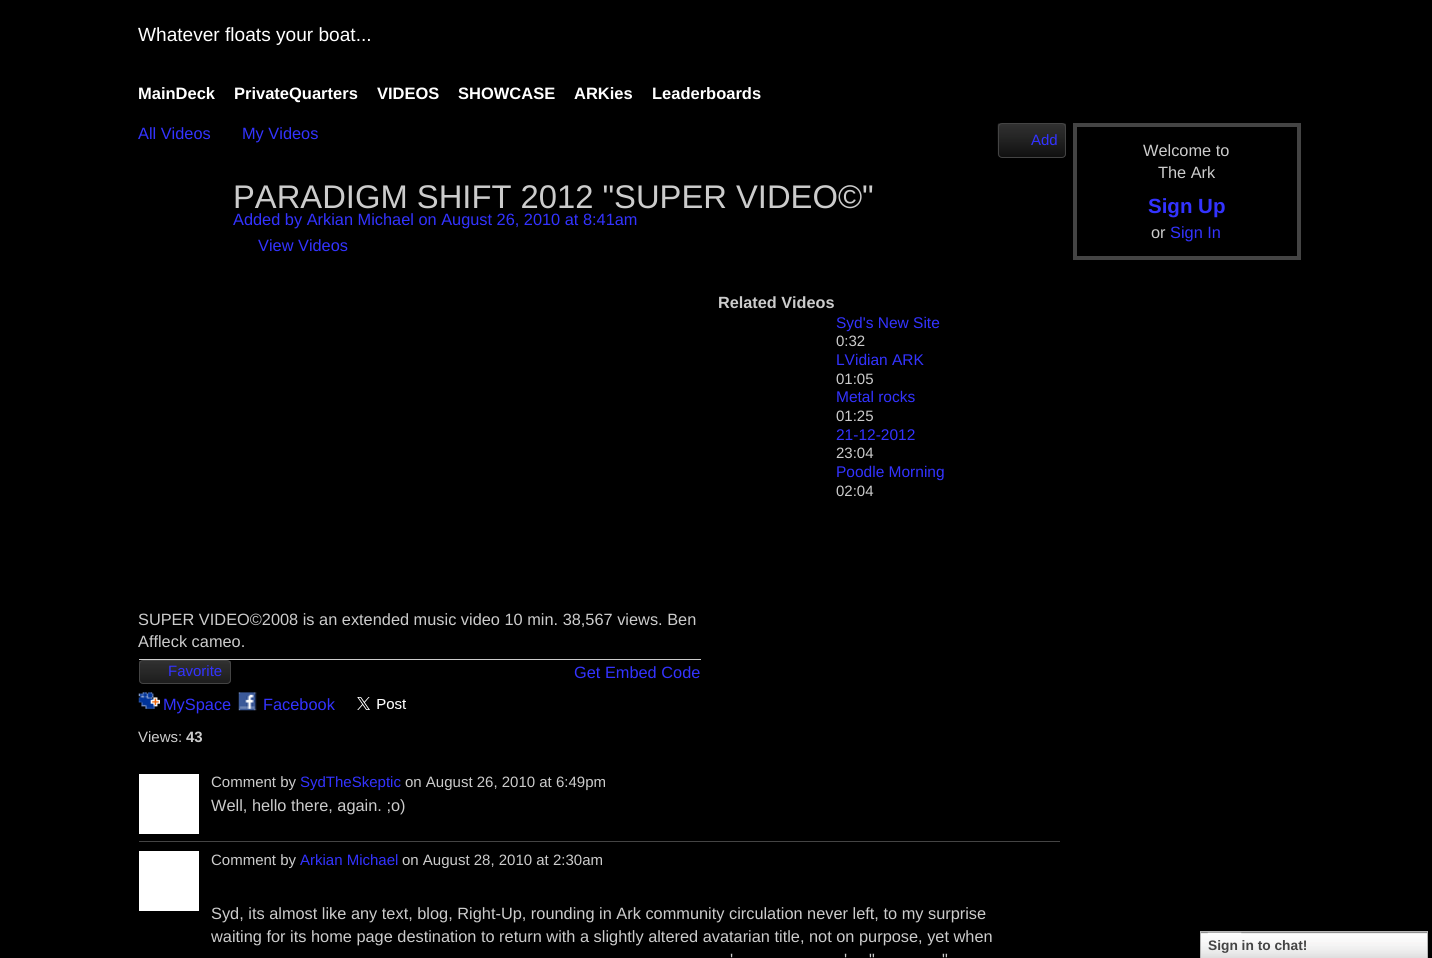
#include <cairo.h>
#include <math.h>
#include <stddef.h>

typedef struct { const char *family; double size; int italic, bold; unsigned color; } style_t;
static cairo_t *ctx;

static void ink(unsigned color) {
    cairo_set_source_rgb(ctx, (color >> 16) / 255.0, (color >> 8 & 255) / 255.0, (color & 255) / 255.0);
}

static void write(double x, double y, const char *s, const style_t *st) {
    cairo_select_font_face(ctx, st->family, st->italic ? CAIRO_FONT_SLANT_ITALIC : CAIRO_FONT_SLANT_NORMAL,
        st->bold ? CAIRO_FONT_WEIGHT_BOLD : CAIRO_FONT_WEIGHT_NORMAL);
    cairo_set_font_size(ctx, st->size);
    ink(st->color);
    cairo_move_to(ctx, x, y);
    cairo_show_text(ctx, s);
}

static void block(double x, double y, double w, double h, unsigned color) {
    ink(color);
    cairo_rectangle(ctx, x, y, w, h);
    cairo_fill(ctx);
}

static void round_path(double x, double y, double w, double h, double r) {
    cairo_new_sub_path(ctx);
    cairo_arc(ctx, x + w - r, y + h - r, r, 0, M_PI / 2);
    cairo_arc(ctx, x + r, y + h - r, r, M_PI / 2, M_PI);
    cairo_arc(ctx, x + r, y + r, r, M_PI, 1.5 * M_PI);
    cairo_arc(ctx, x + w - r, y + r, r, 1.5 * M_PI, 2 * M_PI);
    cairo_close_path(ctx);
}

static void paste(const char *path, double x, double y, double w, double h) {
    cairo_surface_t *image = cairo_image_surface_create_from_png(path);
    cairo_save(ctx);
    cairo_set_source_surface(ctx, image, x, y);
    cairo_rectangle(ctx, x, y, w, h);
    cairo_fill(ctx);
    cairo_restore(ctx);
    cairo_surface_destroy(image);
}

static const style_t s1 = {"Liberation Sans", 19.1, 0, 0, 0xffffff};
static const style_t s2 = {"Liberation Sans", 16.5, 0, 1, 0xffffff};
static const style_t s3 = {"Liberation Sans", 16.35, 0, 0, 0x3333ff};
static const style_t s4 = {"Liberation Sans", 15, 0, 0, 0x3333ff};
static const style_t s5 = {"Liberation Sans", 32.75, 0, 0, 0xcccccc};
static const style_t s6 = {"Liberation Sans", 16.25, 0, 1, 0xcccccc};
static const style_t s7 = {"Liberation Sans", 15.5, 0, 0, 0x3333ff};
static const style_t s8 = {"Liberation Sans", 15, 0, 0, 0xcccccc};
static const style_t s9 = {"Liberation Sans", 16.35, 0, 0, 0xcccccc};
static const style_t s10 = {"Liberation Sans", 15, 0, 1, 0xcccccc};
static const style_t s11 = {"Liberation Sans", 20.5, 0, 1, 0x3333ff};
static const style_t s12 = {"Liberation Sans", 13.75, 0, 1, 0x454545};

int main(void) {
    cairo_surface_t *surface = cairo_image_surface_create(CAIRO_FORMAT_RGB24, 1432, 958);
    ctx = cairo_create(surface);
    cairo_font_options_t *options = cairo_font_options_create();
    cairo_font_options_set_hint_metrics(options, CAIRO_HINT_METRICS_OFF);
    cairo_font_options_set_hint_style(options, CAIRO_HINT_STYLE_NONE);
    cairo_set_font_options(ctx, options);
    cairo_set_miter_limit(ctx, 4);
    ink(0x000000);
    cairo_paint(ctx);
    write(138, 41, "Whatever floats your boat...", &s1);
    write(138, 99, "MainDeck", &s2);
    write(234, 99, "PrivateQuarters", &s2);
    write(377, 99, "VIDEOS", &s2);
    write(458, 99, "SHOWCASE", &s2);
    write(574, 99, "ARKies", &s2);
    write(652, 99, "Leaderboards", &s2);
    write(138, 139, "All Videos", &s3);
    write(242, 139, "My Videos", &s3);
    paste("pic1.png", 997, 123, 69, 34);
    round_path(998.5, 123.5, 67, 34, 3.5);
    ink(0x444444);
    cairo_set_line_width(ctx, 1);
    cairo_stroke(ctx);
    write(1031, 145, "Add", &s4);
    write(233, 208, "PARADIGM SHIFT 2012 \"SUPER VIDEO©\"", &s5);
    write(233, 225, "Added by Arkian Michael on August 26, 2010 at 8:41am", &s3);
    write(258, 251, "View Videos", &s3);
    write(718, 308, "Related Videos", &s6);
    write(836, 328, "Syd's New Site", &s7);
    write(836, 346, "0:32", &s8);
    write(836, 365, "LVidian ARK", &s7);
    write(836, 384, "01:05", &s8);
    write(836, 402, "Metal rocks", &s7);
    write(836, 421, "01:25", &s8);
    write(836, 440, "21-12-2012", &s7);
    write(836, 458, "23:04", &s8);
    write(836, 477, "Poodle Morning", &s7);
    write(836, 496, "02:04", &s8);
    block(139, 659, 562, 1, 0xcccccc);
    write(138, 625, "SUPER VIDEO©2008 is an extended music video 10 min. 38,567 views. Ben", &s9);
    write(138, 647, "Affleck cameo.", &s9);
    paste("pic2.png", 139, 661, 92, 23);
    round_path(139.5, 660.5, 91, 23, 3.5);
    ink(0x444444);
    cairo_stroke(ctx);
    write(168, 676, "Favorite", &s4);
    paste("pic3.png", 138, 692, 22, 17);
    write(163, 710, "MySpace", &s3);
    paste("pic4.png", 238, 692, 19, 19);
    write(263, 710, "Facebook", &s3);
    paste("pic5.png", 357, 697, 50, 13);
    write(138, 742, "Views:", &s8);
    write(186, 742, "43", &s10);
    write(574, 678, "Get Embed Code", &s3);
    block(139, 841, 921, 1, 0x444444);
    block(139, 774, 60, 60, 0xffffff);
    write(211, 787, "Comment by", &s8);
    write(300, 787, "SydTheSkeptic", &s4);
    write(405, 787, "on August 26, 2010 at 6:49pm", &s8);
    write(211, 811, "Well, hello there, again. ;o)", &s9);
    block(139, 851, 60, 60, 0xffffff);
    write(211, 865, "Comment by", &s8);
    write(300, 865, "Arkian Michael", &s4);
    write(402, 865, "on August 28, 2010 at 2:30am", &s8);
    write(211, 919, "Syd, its almost like any text, blog, Right-Up, rounding in Ark community circulation never left, to my surprise", &s9);
    write(211, 942, "waiting for its home page destination to return with a slightly altered avatarian title, not on purpose, yet when", &s9);
    write(730, 965, "'", &s9);
    write(844, 965, "'", &s9);
    write(869, 965, "\"", &s9);
    write(942, 965, "\"", &s9);
    cairo_rectangle(ctx, 1075, 125, 224, 133);
    ink(0x444444);
    cairo_set_line_width(ctx, 4);
    cairo_stroke(ctx);
    write(1143, 156, "Welcome to", &s9);
    write(1158, 178, "The Ark", &s9);
    write(1148, 213, "Sign Up", &s11);
    write(1151, 238, "or", &s9);
    write(1170, 238, "Sign In", &s3);
    paste("pic6.png", 1201, 932, 226, 26);
    cairo_rectangle(ctx, 1200.5, 931.5, 227, 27);
    ink(0xb7b7b7);
    cairo_set_line_width(ctx, 1);
    cairo_stroke(ctx);
    paste("pic7.png", 1207, 932, 35, 2);
    write(1208, 950, "Sign in to chat!", &s12);
    cairo_surface_write_to_png(surface, "screenshot.png");
    cairo_font_options_destroy(options);
    cairo_destroy(ctx);
    cairo_surface_destroy(surface);
    return 0;
}
